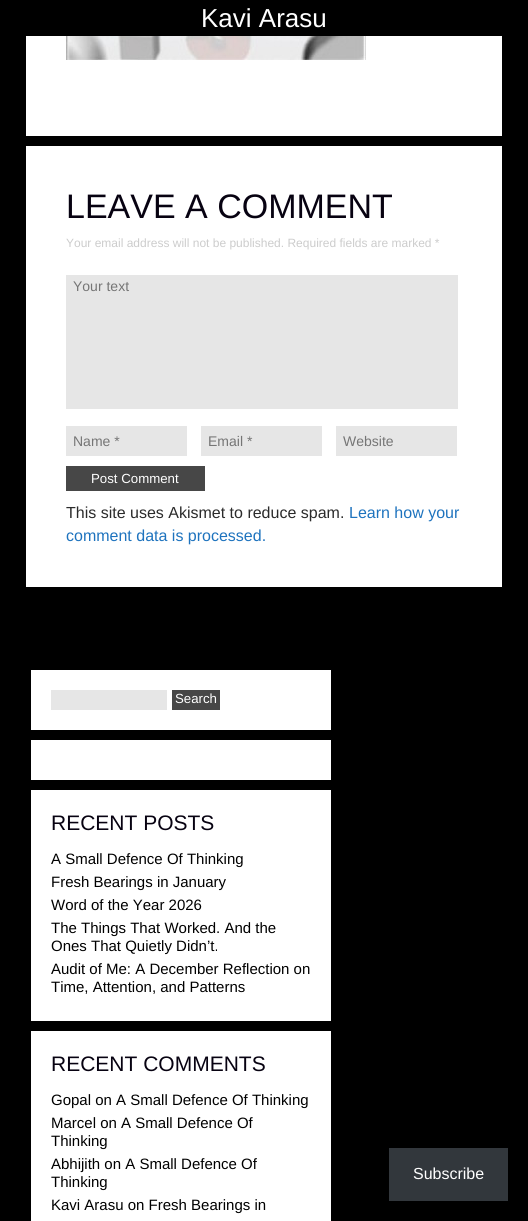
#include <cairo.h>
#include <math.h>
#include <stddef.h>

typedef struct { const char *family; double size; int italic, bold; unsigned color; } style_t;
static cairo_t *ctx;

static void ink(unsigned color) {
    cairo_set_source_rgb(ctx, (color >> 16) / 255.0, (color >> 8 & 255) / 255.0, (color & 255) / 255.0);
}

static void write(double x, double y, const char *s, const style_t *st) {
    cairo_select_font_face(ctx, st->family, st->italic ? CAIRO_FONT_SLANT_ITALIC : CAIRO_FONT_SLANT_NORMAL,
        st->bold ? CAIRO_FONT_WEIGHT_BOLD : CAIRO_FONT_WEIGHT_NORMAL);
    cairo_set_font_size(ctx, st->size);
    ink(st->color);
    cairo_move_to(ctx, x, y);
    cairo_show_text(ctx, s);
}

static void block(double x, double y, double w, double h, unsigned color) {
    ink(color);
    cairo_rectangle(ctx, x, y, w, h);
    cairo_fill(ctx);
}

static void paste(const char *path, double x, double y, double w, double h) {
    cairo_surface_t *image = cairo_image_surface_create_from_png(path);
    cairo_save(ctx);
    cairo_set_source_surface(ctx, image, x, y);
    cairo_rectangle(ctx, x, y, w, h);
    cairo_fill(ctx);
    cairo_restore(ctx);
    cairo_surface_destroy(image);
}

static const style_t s1 = {"Liberation Sans", 26, 0, 0, 0xffffff};
static const style_t s2 = {"Liberation Sans", 34, 0, 0, 0x070211};
static const style_t s3 = {"Liberation Sans", 12, 0, 0, 0xcccccc};
static const style_t s4 = {"Liberation Sans", 14, 0, 0, 0x757575};
static const style_t s5 = {"Liberation Sans", 13.25, 0, 0, 0xffffff};
static const style_t s6 = {"Liberation Sans", 16, 0, 0, 0x2b2b2b};
static const style_t s7 = {"Liberation Sans", 16, 0, 0, 0x1e73be};
static const style_t s8 = {"Liberation Sans", 21, 0, 0, 0x070211};
static const style_t s9 = {"Liberation Sans", 15, 0, 0, 0x000000};
static const style_t s10 = {"Liberation Sans", 16, 0, 0, 0xffffff};

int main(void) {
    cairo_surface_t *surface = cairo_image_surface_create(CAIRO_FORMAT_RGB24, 528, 1221);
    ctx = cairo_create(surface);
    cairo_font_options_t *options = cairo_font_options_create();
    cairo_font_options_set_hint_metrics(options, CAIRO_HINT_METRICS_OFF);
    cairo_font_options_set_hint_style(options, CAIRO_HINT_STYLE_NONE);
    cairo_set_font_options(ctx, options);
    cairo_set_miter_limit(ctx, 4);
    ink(0x000000);
    cairo_paint(ctx);
    write(201, 27, "Kavi Arasu", &s1);
    block(26, 36, 476, 100, 0xffffff);
    paste("pic1.png", 66, 36, 300, 24);
    block(26, 146, 476, 441, 0xffffff);
    write(66, 218, "LEAVE A COMMENT", &s2);
    write(66, 247, "Your email address will not be published. Required fields are marked *", &s3);
    block(66, 275, 392, 134, 0xe6e6e6);
    write(73, 291, "Your text", &s4);
    block(66, 426, 121, 30, 0xe6e6e6);
    write(73, 446, "Name *", &s4);
    block(201, 426, 121, 30, 0xe6e6e6);
    write(208, 446, "Email *", &s4);
    block(336, 426, 121, 30, 0xe6e6e6);
    write(343, 446, "Website", &s4);
    block(66, 466, 139, 25, 0x474747);
    write(91, 483, "Post Comment", &s5);
    write(66, 518, "This site uses Akismet to reduce spam.", &s6);
    write(349, 518, "Learn how your", &s7);
    write(66, 541, "comment data is processed.", &s7);
    block(31, 670, 300, 60, 0xffffff);
    block(51, 690, 116, 20, 0xe6e6e6);
    block(172, 690, 48, 20, 0x474747);
    write(175, 703, "Search", &s5);
    block(31, 740, 300, 40, 0xffffff);
    block(31, 790, 300, 231, 0xffffff);
    write(51, 830, "RECENT POSTS", &s8);
    write(51, 864, "A Small Defence Of Thinking", &s9);
    write(51, 887, "Fresh Bearings in January", &s9);
    write(51, 910, "Word of the Year 2026", &s9);
    write(51, 933, "The Things That Worked. And the", &s9);
    write(51, 951, "Ones That Quietly Didn’t.", &s9);
    write(51, 974, "Audit of Me: A December Reflection on", &s9);
    write(51, 992, "Time, Attention, and Patterns", &s9);
    block(31, 1031, 300, 190, 0xffffff);
    write(51, 1071, "RECENT COMMENTS", &s8);
    write(51, 1105, "Gopal on A Small Defence Of Thinking", &s9);
    write(51, 1128, "Marcel on A Small Defence Of", &s9);
    write(51, 1146, "Thinking", &s9);
    write(51, 1169, "Abhijith on A Small Defence Of", &s9);
    write(51, 1187, "Thinking", &s9);
    write(51, 1210, "Kavi Arasu on Fresh Bearings in", &s9);
    block(389, 1148, 119, 53, 0x32373c);
    write(413, 1179, "Subscribe", &s10);
    cairo_surface_write_to_png(surface, "screenshot.png");
    cairo_font_options_destroy(options);
    cairo_destroy(ctx);
    cairo_surface_destroy(surface);
    return 0;
}
